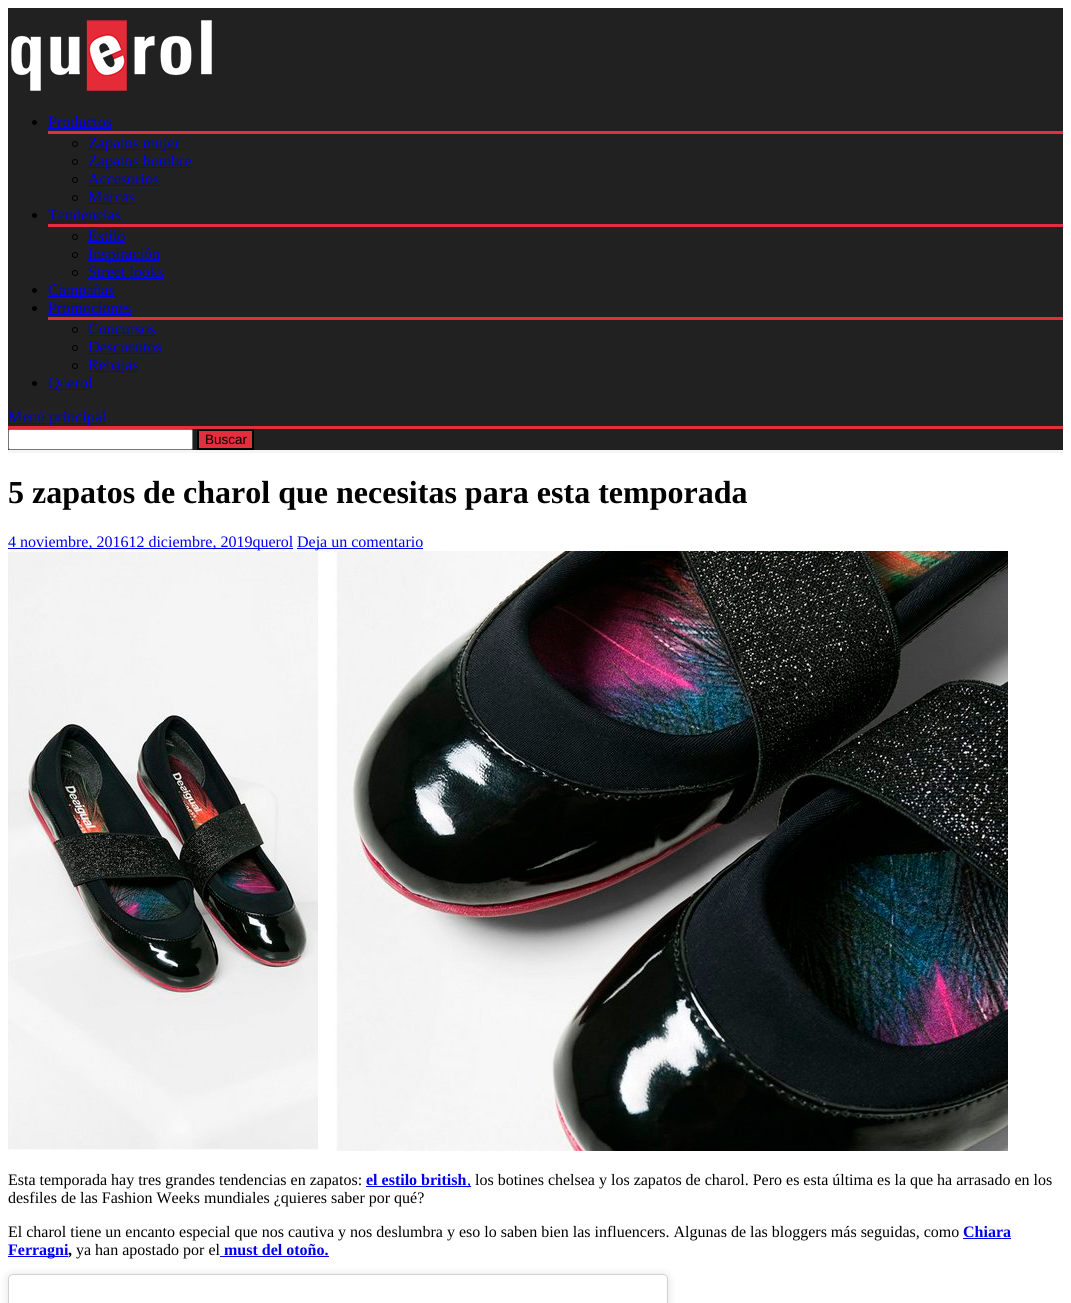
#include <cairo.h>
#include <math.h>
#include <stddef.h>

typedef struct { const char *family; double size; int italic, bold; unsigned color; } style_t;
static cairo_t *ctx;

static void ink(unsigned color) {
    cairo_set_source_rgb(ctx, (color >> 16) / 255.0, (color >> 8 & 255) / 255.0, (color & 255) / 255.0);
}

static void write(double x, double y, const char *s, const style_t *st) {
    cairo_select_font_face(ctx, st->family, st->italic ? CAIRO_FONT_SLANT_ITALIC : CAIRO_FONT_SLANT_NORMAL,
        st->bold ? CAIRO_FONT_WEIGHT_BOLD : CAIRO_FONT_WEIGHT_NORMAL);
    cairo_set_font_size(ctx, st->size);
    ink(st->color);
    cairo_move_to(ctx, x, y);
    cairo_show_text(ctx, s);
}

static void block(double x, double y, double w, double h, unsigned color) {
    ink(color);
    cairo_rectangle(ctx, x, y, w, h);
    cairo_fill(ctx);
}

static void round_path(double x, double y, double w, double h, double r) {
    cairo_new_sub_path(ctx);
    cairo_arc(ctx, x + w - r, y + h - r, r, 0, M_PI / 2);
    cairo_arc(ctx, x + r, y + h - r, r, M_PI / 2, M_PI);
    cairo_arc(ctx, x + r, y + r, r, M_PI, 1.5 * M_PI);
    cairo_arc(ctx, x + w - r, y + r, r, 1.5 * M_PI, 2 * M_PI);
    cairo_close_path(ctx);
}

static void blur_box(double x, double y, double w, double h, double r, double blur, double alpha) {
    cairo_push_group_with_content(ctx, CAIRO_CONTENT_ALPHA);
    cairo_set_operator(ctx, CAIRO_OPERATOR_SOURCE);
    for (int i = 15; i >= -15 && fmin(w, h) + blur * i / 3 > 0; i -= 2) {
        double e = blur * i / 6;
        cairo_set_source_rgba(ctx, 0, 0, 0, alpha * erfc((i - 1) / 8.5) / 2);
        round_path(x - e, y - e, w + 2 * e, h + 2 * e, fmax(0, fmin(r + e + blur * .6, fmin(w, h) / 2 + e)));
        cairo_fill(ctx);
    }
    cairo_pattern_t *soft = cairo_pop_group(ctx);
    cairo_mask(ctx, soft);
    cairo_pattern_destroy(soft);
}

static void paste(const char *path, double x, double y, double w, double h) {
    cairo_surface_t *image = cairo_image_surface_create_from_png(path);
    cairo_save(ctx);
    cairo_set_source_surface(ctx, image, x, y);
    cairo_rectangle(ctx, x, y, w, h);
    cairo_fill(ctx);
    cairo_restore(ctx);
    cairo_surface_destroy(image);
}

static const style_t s1 = {"Liberation Serif", 16, 0, 0, 0x0000ee};
static const style_t s2 = {"Liberation Sans", 13.5, 0, 0, 0x000000};
static const style_t s3 = {"Liberation Serif", 32, 0, 1, 0x000000};
static const style_t s4 = {"Liberation Serif", 16, 0, 0, 0x000000};
static const style_t s5 = {"Liberation Serif", 16, 0, 1, 0x0000ee};
static const style_t s6 = {"Liberation Serif", 16, 0, 1, 0x000000};

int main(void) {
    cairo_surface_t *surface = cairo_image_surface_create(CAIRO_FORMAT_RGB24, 1071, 1303);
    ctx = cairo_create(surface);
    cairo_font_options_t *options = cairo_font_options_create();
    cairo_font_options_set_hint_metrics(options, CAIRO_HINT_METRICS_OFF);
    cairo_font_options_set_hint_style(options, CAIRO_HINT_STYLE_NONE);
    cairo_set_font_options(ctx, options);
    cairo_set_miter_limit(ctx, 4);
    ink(0xffffff);
    cairo_paint(ctx);
    block(8, 8, 1055, 442, 0x212121);
    block(8, 450, 1055, 3, 0xf5f5f5);
    paste("pic1.png", 11, 20, 201, 71);
    ink(0x000000);
    cairo_arc(ctx, 34.5, 122.5, 2.5, 0, 2 * M_PI);
    cairo_fill(ctx);
    write(48, 127, "Productos", &s1);
    block(48, 128, 64, 1, 0x0000ee);
    block(48, 131, 1015, 3, 0xe22e3d);
    cairo_new_path(ctx);
    cairo_arc(ctx, 75, 144, 2.5, 0, 2 * M_PI);
    ink(0x000000);
    cairo_set_line_width(ctx, 1);
    cairo_stroke(ctx);
    block(88, 149, 92, 1, 0x0000ee);
    write(88, 148, "Zapatos mujer", &s1);
    cairo_new_path(ctx);
    cairo_arc(ctx, 75, 162, 2.5, 0, 2 * M_PI);
    ink(0x000000);
    cairo_stroke(ctx);
    block(88, 167, 104, 1, 0x0000ee);
    write(88, 166, "Zapatos hombre", &s1);
    cairo_new_path(ctx);
    cairo_arc(ctx, 75, 180, 2.5, 0, 2 * M_PI);
    ink(0x000000);
    cairo_stroke(ctx);
    write(88, 184, "Accesorios", &s1);
    block(88, 185, 71, 1, 0x0000ee);
    cairo_new_path(ctx);
    cairo_arc(ctx, 75, 198, 2.5, 0, 2 * M_PI);
    ink(0x000000);
    cairo_stroke(ctx);
    write(88, 202, "Marcas", &s1);
    block(88, 203, 47, 1, 0x0000ee);
    ink(0x000000);
    cairo_new_path(ctx);
    cairo_arc(ctx, 34.5, 215.5, 2.5, 0, 2 * M_PI);
    cairo_fill(ctx);
    write(48, 220, "Tendencias", &s1);
    block(48, 221, 73, 1, 0x0000ee);
    block(48, 224, 1015, 3, 0xe22e3d);
    cairo_new_path(ctx);
    cairo_arc(ctx, 75, 237, 2.5, 0, 2 * M_PI);
    ink(0x000000);
    cairo_stroke(ctx);
    write(88, 241, "Estilo", &s1);
    block(88, 242, 37, 1, 0x0000ee);
    cairo_new_path(ctx);
    cairo_arc(ctx, 75, 255, 2.5, 0, 2 * M_PI);
    ink(0x000000);
    cairo_stroke(ctx);
    block(88, 260, 72, 1, 0x0000ee);
    write(88, 259, "Inspiración", &s1);
    cairo_new_path(ctx);
    cairo_arc(ctx, 75, 273, 2.5, 0, 2 * M_PI);
    ink(0x000000);
    cairo_stroke(ctx);
    write(88, 277, "Street looks", &s1);
    block(88, 278, 76, 1, 0x0000ee);
    ink(0x000000);
    cairo_new_path(ctx);
    cairo_arc(ctx, 34.5, 290.5, 2.5, 0, 2 * M_PI);
    cairo_fill(ctx);
    block(48, 296, 67, 1, 0x0000ee);
    write(48, 295, "Campañas", &s1);
    ink(0x000000);
    cairo_new_path(ctx);
    cairo_arc(ctx, 34.5, 308.5, 2.5, 0, 2 * M_PI);
    cairo_fill(ctx);
    write(48, 313, "Promociones", &s1);
    block(48, 314, 84, 1, 0x0000ee);
    block(48, 317, 1015, 3, 0xe22e3d);
    cairo_new_path(ctx);
    cairo_arc(ctx, 75, 330, 2.5, 0, 2 * M_PI);
    ink(0x000000);
    cairo_stroke(ctx);
    write(88, 334, "Concursos", &s1);
    block(88, 335, 68, 1, 0x0000ee);
    cairo_new_path(ctx);
    cairo_arc(ctx, 75, 348, 2.5, 0, 2 * M_PI);
    ink(0x000000);
    cairo_stroke(ctx);
    write(88, 352, "Descuentos", &s1);
    block(88, 353, 74, 1, 0x0000ee);
    cairo_new_path(ctx);
    cairo_arc(ctx, 75, 366, 2.5, 0, 2 * M_PI);
    ink(0x000000);
    cairo_stroke(ctx);
    block(88, 371, 51, 1, 0x0000ee);
    write(88, 370, "Rebajas", &s1);
    ink(0x000000);
    cairo_new_path(ctx);
    cairo_arc(ctx, 34.5, 383.5, 2.5, 0, 2 * M_PI);
    cairo_fill(ctx);
    block(48, 389, 44, 1, 0x0000ee);
    write(48, 388, "Querol", &s1);
    block(8, 423, 98, 1, 0x0000ee);
    write(8, 422, "Menú principal", &s1);
    block(8, 426, 1055, 3, 0xe22e3d);
    ink(0xffffff);
    round_path(8.5, 429.5, 184, 20, 1.5);
    cairo_fill_preserve(ctx);
    ink(0x767676);
    cairo_stroke(ctx);
    ink(0xe22e3d);
    cairo_rectangle(ctx, 198, 430, 55, 19);
    cairo_fill_preserve(ctx);
    ink(0x000000);
    cairo_set_line_width(ctx, 2);
    cairo_stroke(ctx);
    write(205, 444, "Buscar", &s2);
    write(8, 503, "5 zapatos de charol que necesitas para esta temporada", &s3);
    block(8, 548, 285, 1, 0x0000ee);
    write(8, 547, "4 noviembre, 201612 diciembre, 2019querol", &s1);
    block(297, 548, 126, 1, 0x0000ee);
    write(297, 547, "Deja un comentario", &s1);
    paste("pic2.png", 8, 551, 1000, 600);
    write(8, 1185, "Esta temporada hay tres grandes tendencias en zapatos:", &s4);
    write(366, 1185, "el estilo british", &s5);
    block(366, 1186, 105, 1, 0x0000ee);
    write(467, 1185, ",", &s1);
    write(475, 1185, "los botines chelsea y los zapatos de charol. Pero es esta última es la que ha arrasado en los", &s4);
    write(8, 1203, "desfiles de las Fashion Weeks mundiales ¿quieres saber por qué?", &s4);
    write(8, 1237, "El charol tiene un encanto especial que nos cautiva y nos deslumbra y eso lo saben bien las influencers. Algunas de las bloggers más seguidas, como", &s4);
    write(963, 1237, "Chiara", &s5);
    block(963, 1238, 48, 1, 0x0000ee);
    block(8, 1256, 60, 1, 0x0000ee);
    write(8, 1255, "Ferragni", &s5);
    write(68, 1255, ",", &s6);
    write(76, 1255, "ya han apostado por el", &s4);
    write(224, 1255, "must del otoño.", &s5);
    block(220, 1256, 109, 1, 0x0000ee);
    ink(0x000000);
    blur_box(9, 1276, 658, 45, 3, 5, 0.15);
    blur_box(9, 1275, 658, 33, 3, 0.5, 0.5);
    ink(0xffffff);
    round_path(9, 1275, 658, 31, 3);
    cairo_fill(ctx);
    cairo_surface_write_to_png(surface, "screenshot.png");
    cairo_font_options_destroy(options);
    cairo_destroy(ctx);
    cairo_surface_destroy(surface);
    return 0;
}
